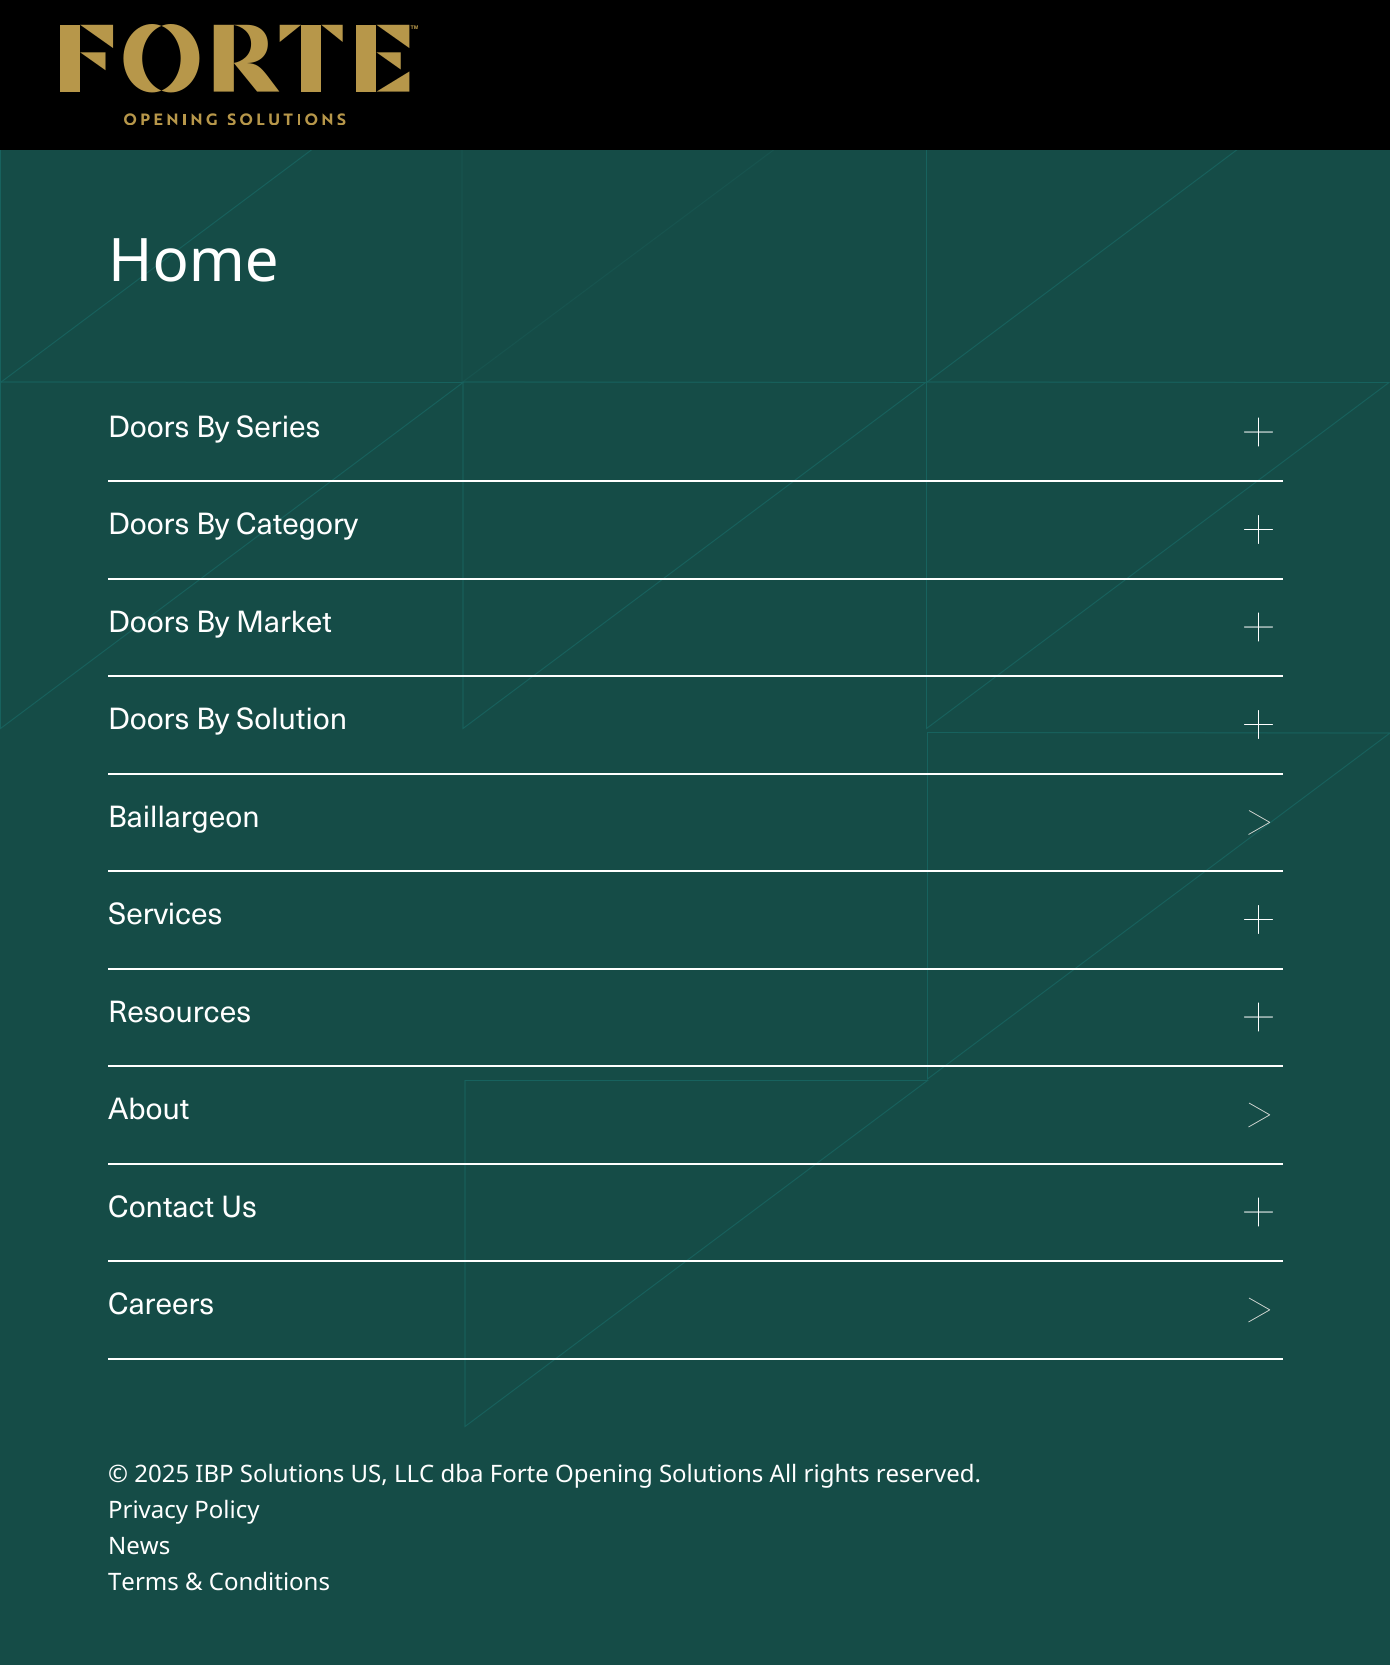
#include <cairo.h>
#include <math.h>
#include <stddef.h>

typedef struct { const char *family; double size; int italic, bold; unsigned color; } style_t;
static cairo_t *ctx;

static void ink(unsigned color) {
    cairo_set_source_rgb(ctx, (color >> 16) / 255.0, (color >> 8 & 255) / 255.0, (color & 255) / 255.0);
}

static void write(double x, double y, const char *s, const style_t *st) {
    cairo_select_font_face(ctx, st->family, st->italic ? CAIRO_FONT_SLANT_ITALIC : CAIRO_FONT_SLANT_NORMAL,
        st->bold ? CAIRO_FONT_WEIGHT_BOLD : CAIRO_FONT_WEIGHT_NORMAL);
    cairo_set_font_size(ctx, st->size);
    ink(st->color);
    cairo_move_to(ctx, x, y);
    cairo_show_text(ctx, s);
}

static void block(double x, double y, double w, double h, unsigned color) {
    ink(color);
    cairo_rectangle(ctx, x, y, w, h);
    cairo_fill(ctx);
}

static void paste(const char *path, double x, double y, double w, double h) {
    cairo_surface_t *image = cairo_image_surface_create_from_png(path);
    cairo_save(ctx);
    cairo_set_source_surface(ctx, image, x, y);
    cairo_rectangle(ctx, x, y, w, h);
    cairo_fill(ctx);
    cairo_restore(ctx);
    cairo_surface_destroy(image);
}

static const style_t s1 = {"Noto Sans", 60, 0, 0, 0xffffff};
static const style_t s2 = {"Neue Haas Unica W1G", 30, 0, 0, 0xffffff};
static const style_t s3 = {"Noto Sans", 24, 0, 0, 0xffffff};

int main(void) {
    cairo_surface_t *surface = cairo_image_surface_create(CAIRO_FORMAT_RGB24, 1390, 1665);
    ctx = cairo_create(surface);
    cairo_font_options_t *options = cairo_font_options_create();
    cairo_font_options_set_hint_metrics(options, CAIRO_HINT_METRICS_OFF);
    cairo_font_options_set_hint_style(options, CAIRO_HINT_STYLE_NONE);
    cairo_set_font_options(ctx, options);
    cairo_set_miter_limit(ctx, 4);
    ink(0x154c47);
    cairo_paint(ctx);
    cairo_new_path(ctx);
    cairo_move_to(ctx, 462, 36.5);
    cairo_line_to(ctx, 925.5, 36.5);
    cairo_line_to(ctx, 462, 382.5);
    cairo_close_path(ctx);
    ink(0x17544f);
    cairo_set_line_width(ctx, 1);
    cairo_stroke(ctx);
    cairo_new_path(ctx);
    cairo_move_to(ctx, 926.5, 36.5);
    cairo_line_to(ctx, 1388, 36.5);
    cairo_line_to(ctx, 926.5, 382.5);
    cairo_close_path(ctx);
    ink(0x17625e);
    cairo_stroke(ctx);
    cairo_new_path(ctx);
    cairo_move_to(ctx, 0.5, 382);
    cairo_line_to(ctx, 463, 382.5);
    cairo_line_to(ctx, 0.5, 728.5);
    cairo_close_path(ctx);
    cairo_stroke(ctx);
    cairo_new_path(ctx);
    cairo_move_to(ctx, 0.5, 36.5);
    cairo_line_to(ctx, 463, 36.5);
    cairo_line_to(ctx, 0.5, 382.5);
    cairo_close_path(ctx);
    cairo_stroke(ctx);
    block(0, 0, 1390, 150, 0x000000);
    paste("pic1.png", 60, 24, 358, 101);
    cairo_new_path(ctx);
    cairo_move_to(ctx, 463, 382);
    cairo_line_to(ctx, 925.5, 382.5);
    cairo_line_to(ctx, 463, 728.5);
    cairo_close_path(ctx);
    ink(0x17625e);
    cairo_stroke(ctx);
    cairo_new_path(ctx);
    cairo_move_to(ctx, 926.5, 382);
    cairo_line_to(ctx, 1389, 382.5);
    cairo_line_to(ctx, 926.5, 728.5);
    cairo_close_path(ctx);
    cairo_stroke(ctx);
    cairo_new_path(ctx);
    cairo_move_to(ctx, 927.5, 732.5);
    cairo_line_to(ctx, 1390, 733);
    cairo_line_to(ctx, 927.5, 1079);
    cairo_close_path(ctx);
    cairo_stroke(ctx);
    cairo_new_path(ctx);
    cairo_move_to(ctx, 465, 1080.5);
    cairo_line_to(ctx, 927.5, 1080.5);
    cairo_line_to(ctx, 465, 1426.5);
    cairo_close_path(ctx);
    cairo_stroke(ctx);
    write(108, 281, "Home", &s1);
    block(108, 480, 1175, 2, 0xffffff);
    write(108, 437, "Doors By Series", &s2);
    cairo_new_path(ctx);
    cairo_move_to(ctx, 1244.5, 432);
    cairo_line_to(ctx, 1272.5, 432);
    cairo_move_to(ctx, 1258.5, 418);
    cairo_line_to(ctx, 1258.5, 446);
    cairo_set_line_cap(ctx, CAIRO_LINE_CAP_ROUND);
    cairo_set_line_join(ctx, CAIRO_LINE_JOIN_ROUND);
    cairo_stroke(ctx);
    block(108, 578, 1175, 2, 0xffffff);
    write(108, 534, "Doors By Category", &s2);
    cairo_new_path(ctx);
    cairo_move_to(ctx, 1244.5, 529.5);
    cairo_line_to(ctx, 1272.5, 529.5);
    cairo_move_to(ctx, 1258.5, 515.5);
    cairo_line_to(ctx, 1258.5, 543.5);
    cairo_stroke(ctx);
    block(108, 675, 1175, 2, 0xffffff);
    write(108, 632, "Doors By Market", &s2);
    cairo_new_path(ctx);
    cairo_move_to(ctx, 1244.5, 627);
    cairo_line_to(ctx, 1272.5, 627);
    cairo_move_to(ctx, 1258.5, 613);
    cairo_line_to(ctx, 1258.5, 641);
    cairo_stroke(ctx);
    block(108, 773, 1175, 2, 0xffffff);
    write(108, 729, "Doors By Solution", &s2);
    cairo_new_path(ctx);
    cairo_move_to(ctx, 1244.5, 724.5);
    cairo_line_to(ctx, 1272.5, 724.5);
    cairo_move_to(ctx, 1258.5, 710.5);
    cairo_line_to(ctx, 1258.5, 738.5);
    cairo_stroke(ctx);
    block(108, 870, 1175, 2, 0xffffff);
    write(108, 827, "Baillargeon", &s2);
    cairo_new_path(ctx);
    cairo_move_to(ctx, 1249, 810.5);
    cairo_line_to(ctx, 1270, 822.5);
    cairo_move_to(ctx, 1248.5, 834.5);
    cairo_line_to(ctx, 1269.5, 822.5);
    ink(0xeae8e4);
    cairo_set_line_width(ctx, 0.8);
    cairo_set_line_cap(ctx, CAIRO_LINE_CAP_BUTT);
    cairo_set_line_join(ctx, CAIRO_LINE_JOIN_MITER);
    cairo_stroke(ctx);
    block(108, 968, 1175, 2, 0xffffff);
    write(108, 924, "Services", &s2);
    cairo_new_path(ctx);
    cairo_move_to(ctx, 1244.5, 919.5);
    cairo_line_to(ctx, 1272.5, 919.5);
    cairo_move_to(ctx, 1258.5, 905.5);
    cairo_line_to(ctx, 1258.5, 933.5);
    cairo_set_line_width(ctx, 1);
    cairo_set_line_cap(ctx, CAIRO_LINE_CAP_ROUND);
    cairo_set_line_join(ctx, CAIRO_LINE_JOIN_ROUND);
    cairo_stroke(ctx);
    block(108, 1065, 1175, 2, 0xffffff);
    write(108, 1022, "Resources", &s2);
    cairo_new_path(ctx);
    cairo_move_to(ctx, 1244.5, 1017);
    cairo_line_to(ctx, 1272.5, 1017);
    cairo_move_to(ctx, 1258.5, 1003);
    cairo_line_to(ctx, 1258.5, 1031);
    cairo_stroke(ctx);
    block(108, 1163, 1175, 2, 0xffffff);
    write(108, 1119, "About", &s2);
    cairo_new_path(ctx);
    cairo_move_to(ctx, 1249, 1103);
    cairo_line_to(ctx, 1270, 1115);
    cairo_move_to(ctx, 1248.5, 1127);
    cairo_line_to(ctx, 1269.5, 1115);
    ink(0xeae8e4);
    cairo_set_line_width(ctx, 0.8);
    cairo_set_line_cap(ctx, CAIRO_LINE_CAP_BUTT);
    cairo_set_line_join(ctx, CAIRO_LINE_JOIN_MITER);
    cairo_stroke(ctx);
    block(108, 1260, 1175, 2, 0xffffff);
    write(108, 1217, "Contact Us", &s2);
    cairo_new_path(ctx);
    cairo_move_to(ctx, 1244.5, 1212);
    cairo_line_to(ctx, 1272.5, 1212);
    cairo_move_to(ctx, 1258.5, 1198);
    cairo_line_to(ctx, 1258.5, 1226);
    cairo_set_line_width(ctx, 1);
    cairo_set_line_cap(ctx, CAIRO_LINE_CAP_ROUND);
    cairo_set_line_join(ctx, CAIRO_LINE_JOIN_ROUND);
    cairo_stroke(ctx);
    block(108, 1358, 1175, 2, 0xffffff);
    write(108, 1314, "Careers", &s2);
    cairo_new_path(ctx);
    cairo_move_to(ctx, 1249, 1298);
    cairo_line_to(ctx, 1270, 1310);
    cairo_move_to(ctx, 1248.5, 1322);
    cairo_line_to(ctx, 1269.5, 1310);
    ink(0xeae8e4);
    cairo_set_line_width(ctx, 0.8);
    cairo_set_line_cap(ctx, CAIRO_LINE_CAP_BUTT);
    cairo_set_line_join(ctx, CAIRO_LINE_JOIN_MITER);
    cairo_stroke(ctx);
    write(108, 1482, "© 2025 IBP Solutions US, LLC dba Forte Opening Solutions All rights reserved.", &s3);
    write(108, 1518, "Privacy Policy", &s3);
    write(108, 1554, "News", &s3);
    write(108, 1590, "Terms & Conditions", &s3);
    cairo_surface_write_to_png(surface, "screenshot.png");
    cairo_font_options_destroy(options);
    cairo_destroy(ctx);
    cairo_surface_destroy(surface);
    return 0;
}
